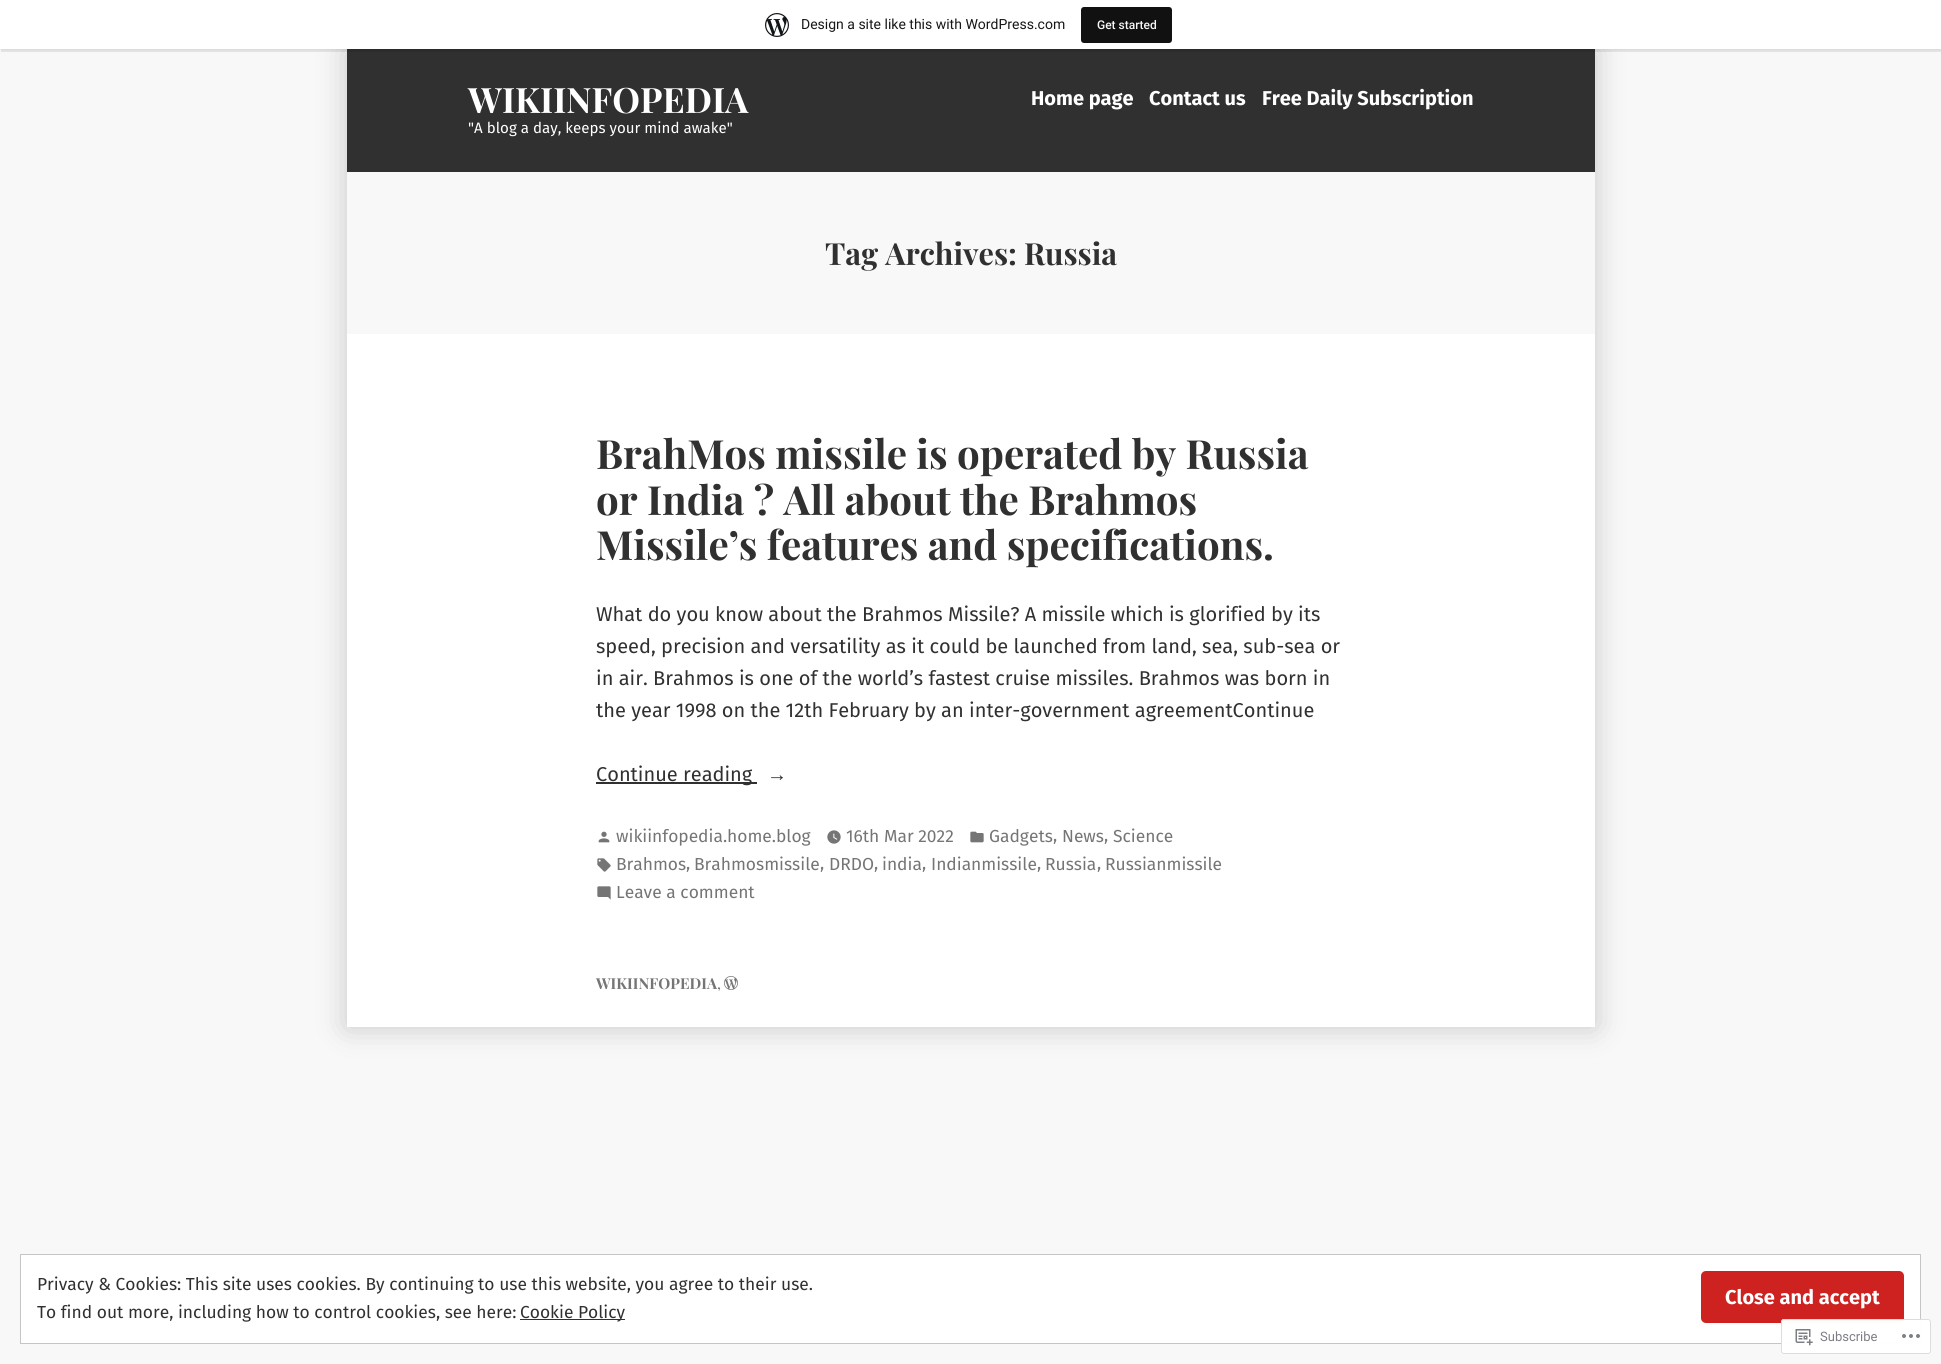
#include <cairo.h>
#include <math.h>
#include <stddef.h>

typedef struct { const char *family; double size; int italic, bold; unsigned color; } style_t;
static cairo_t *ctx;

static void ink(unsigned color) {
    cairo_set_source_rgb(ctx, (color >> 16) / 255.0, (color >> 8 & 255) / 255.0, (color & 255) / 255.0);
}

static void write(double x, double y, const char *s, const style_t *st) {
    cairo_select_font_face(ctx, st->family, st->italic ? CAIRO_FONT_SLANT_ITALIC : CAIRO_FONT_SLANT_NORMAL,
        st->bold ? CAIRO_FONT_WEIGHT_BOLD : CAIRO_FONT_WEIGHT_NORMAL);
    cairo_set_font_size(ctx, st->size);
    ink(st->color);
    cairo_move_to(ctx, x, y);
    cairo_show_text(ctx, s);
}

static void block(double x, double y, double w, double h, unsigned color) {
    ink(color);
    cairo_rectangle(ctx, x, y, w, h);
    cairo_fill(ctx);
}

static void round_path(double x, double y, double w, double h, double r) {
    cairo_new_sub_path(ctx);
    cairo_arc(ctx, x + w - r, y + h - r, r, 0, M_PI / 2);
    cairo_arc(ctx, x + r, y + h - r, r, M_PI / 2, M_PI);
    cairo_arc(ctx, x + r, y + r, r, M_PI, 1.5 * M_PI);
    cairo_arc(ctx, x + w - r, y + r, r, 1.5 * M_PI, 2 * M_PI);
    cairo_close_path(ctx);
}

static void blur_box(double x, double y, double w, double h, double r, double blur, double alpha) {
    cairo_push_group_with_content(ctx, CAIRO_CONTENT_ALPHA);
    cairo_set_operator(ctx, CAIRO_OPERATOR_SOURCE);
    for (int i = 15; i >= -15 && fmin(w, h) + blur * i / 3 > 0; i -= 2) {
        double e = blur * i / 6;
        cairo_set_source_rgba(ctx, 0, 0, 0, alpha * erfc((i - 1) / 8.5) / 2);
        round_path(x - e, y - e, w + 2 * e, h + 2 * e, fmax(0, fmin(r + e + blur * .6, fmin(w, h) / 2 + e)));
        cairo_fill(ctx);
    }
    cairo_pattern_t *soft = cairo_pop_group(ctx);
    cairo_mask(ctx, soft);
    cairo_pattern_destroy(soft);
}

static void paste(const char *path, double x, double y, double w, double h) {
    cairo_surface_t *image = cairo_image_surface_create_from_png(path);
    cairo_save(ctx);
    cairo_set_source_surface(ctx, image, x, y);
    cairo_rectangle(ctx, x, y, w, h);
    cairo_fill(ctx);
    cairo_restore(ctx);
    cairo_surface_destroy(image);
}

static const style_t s1 = {"Roboto", 14, 0, 0, 0x171717};
static const style_t s2 = {"Roboto Medium", 12, 0, 0, 0xf6f7f7};
static const style_t s3 = {"Playfair Display", 35, 0, 1, 0xffffff};
static const style_t s4 = {"Fira Sans", 20, 0, 1, 0xffffff};
static const style_t s5 = {"Fira Sans", 15.1, 0, 0, 0xffffff};
static const style_t s6 = {"Playfair Display", 30.5, 0, 1, 0x303030};
static const style_t s7 = {"Playfair Display", 40.25, 0, 1, 0x303030};
static const style_t s8 = {"Fira Sans", 20, 0, 0, 0x303030};
static const style_t s9 = {"Liberation Serif", 20, 0, 0, 0x303030};
static const style_t s10 = {"Fira Sans", 17.4, 0, 0, 0x757575};
static const style_t s11 = {"Playfair Display", 15.1, 0, 1, 0x757575};
static const style_t s12 = {"Playfair Display", 15.1, 0, 0, 0x757575};
static const style_t s13 = {"Fira Sans", 17.4, 0, 0, 0x303030};
static const style_t s14 = {"Roboto", 13, 0, 0, 0x7b7f85};

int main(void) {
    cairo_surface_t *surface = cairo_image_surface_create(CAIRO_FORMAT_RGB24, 1941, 1364);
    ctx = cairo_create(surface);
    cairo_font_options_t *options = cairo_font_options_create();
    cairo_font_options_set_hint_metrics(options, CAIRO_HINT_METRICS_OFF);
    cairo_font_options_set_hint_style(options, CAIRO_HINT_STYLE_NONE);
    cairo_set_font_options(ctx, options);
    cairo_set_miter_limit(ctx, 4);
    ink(0xf8f8f8);
    cairo_paint(ctx);
    ink(0x000000);
    blur_box(347, 49, 1248, 978, 0, 15, 0.2);
    block(347, 49, 1248, 123, 0x303030);
    ink(0x000000);
    blur_box(0, 1, 1941, 49, 0, 1, 0.05);
    cairo_set_source_rgba(ctx, 0, 0, 0, 0.08);
    cairo_new_path(ctx);
    cairo_move_to(ctx, 1, 49);
    cairo_line_to(ctx, 1, 52);
    cairo_line_to(ctx, 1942, 52);
    cairo_line_to(ctx, 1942, 3);
    cairo_line_to(ctx, 1941, 3);
    cairo_line_to(ctx, 1941, 49);
    cairo_close_path(ctx);
    cairo_fill(ctx);
    block(0, 0, 1941, 49, 0xffffff);
    paste("pic1.png", 765, 13, 24, 24);
    write(801, 29, "Design a site like this with WordPress.com", &s1);
    ink(0x111111);
    round_path(1081, 7, 91, 36, 3);
    cairo_fill(ctx);
    write(1097, 29, "Get started", &s2);
    block(347, 334, 1248, 693, 0xffffff);
    write(468, 113, "WIKIINFOPEDIA", &s3);
    write(1031, 105, "Home page", &s4);
    write(1149, 105, "Contact us", &s4);
    write(1262, 105, "Free Daily Subscription", &s4);
    write(468, 133, "\"A blog a day, keeps your mind awake\"", &s5);
    block(347, 172, 1248, 162, 0xf8f8f8);
    write(825, 265, "Tag Archives: Russia", &s6);
    write(596, 469, "BrahMos missile is operated by Russia", &s7);
    write(596, 515, "or India ? All about the Brahmos", &s7);
    write(596, 560, "Missile’s features and specifications.", &s7);
    write(596, 621, "What do you know about the Brahmos Missile? A missile which is glorified by its", &s8);
    write(596, 653, "speed, precision and versatility as it could be launched from land, sea, sub-sea or", &s8);
    write(596, 685, "in air. Brahmos is one of the world’s fastest cruise missiles. Brahmos was born in", &s8);
    write(596, 717, "the year 1998 on the 12th February by an inter-government agreementContinue", &s8);
    block(596, 782, 161, 2, 0x303030);
    write(596, 781, "Continue reading", &s8);
    write(767, 781, "→", &s9);
    paste("pic2.png", 598, 831, 12, 12);
    write(616, 842, "wikiinfopedia.home.blog", &s10);
    paste("pic3.png", 827, 830, 14, 14);
    write(846, 842, "16th Mar 2022", &s10);
    paste("pic4.png", 970, 831, 14, 12);
    write(989, 842, "Gadgets", &s10);
    write(1053, 841, ",", &s10);
    write(1062, 842, "News", &s10);
    write(1104, 841, ",", &s10);
    write(1113, 842, "Science", &s10);
    paste("pic5.png", 597, 858, 14, 14);
    write(616, 870, "Brahmos", &s10);
    write(686, 869, ",", &s10);
    write(694, 870, "Brahmosmissile", &s10);
    write(820, 869, ",", &s10);
    write(829, 870, "DRDO", &s10);
    write(874, 869, ",", &s10);
    write(882, 870, "india", &s10);
    write(922, 869, ",", &s10);
    write(931, 870, "Indianmissile", &s10);
    write(1037, 869, ",", &s10);
    write(1045, 870, "Russia", &s10);
    write(1097, 869, ",", &s10);
    write(1105, 870, "Russianmissile", &s10);
    paste("pic6.png", 597, 886, 14, 14);
    write(616, 898, "Leave a comment", &s10);
    write(596, 989, "WIKIINFOPEDIA", &s11);
    write(717, 989, ",", &s12);
    paste("pic7.png", 724, 976, 14, 14);
    ink(0xffffff);
    cairo_rectangle(ctx, 20.5, 1254.5, 1900, 89);
    cairo_fill_preserve(ctx);
    ink(0xc5c5c5);
    cairo_set_line_width(ctx, 1);
    cairo_stroke(ctx);
    write(37, 1290, "Privacy & Cookies: This site uses cookies. By continuing to use this website, you agree to their use.", &s13);
    ink(0xcd2220);
    round_path(1701, 1271, 203, 52, 5);
    cairo_fill(ctx);
    write(1725, 1304, "Close and accept", &s4);
    write(37, 1318, "To find out more, including how to control cookies, see here:", &s13);
    block(520, 1319, 105, 1, 0x303030);
    write(520, 1318, "Cookie Policy", &s13);
    cairo_set_source_rgba(ctx, 1, 1, 1, 0.98);
    round_path(1781, 1319, 150, 35, 3);
    cairo_fill(ctx);
    round_path(1781.5, 1319.5, 149, 34, 2.5);
    cairo_set_source_rgba(ctx, 0.863, 0.863, 0.871, 0.98);
    cairo_stroke(ctx);
    paste("pic8.png", 1795, 1329, 18, 17);
    write(1820, 1341, "Subscribe", &s14);
    paste("pic9.png", 1902, 1334, 18, 4);
    cairo_surface_write_to_png(surface, "screenshot.png");
    cairo_font_options_destroy(options);
    cairo_destroy(ctx);
    cairo_surface_destroy(surface);
    return 0;
}
